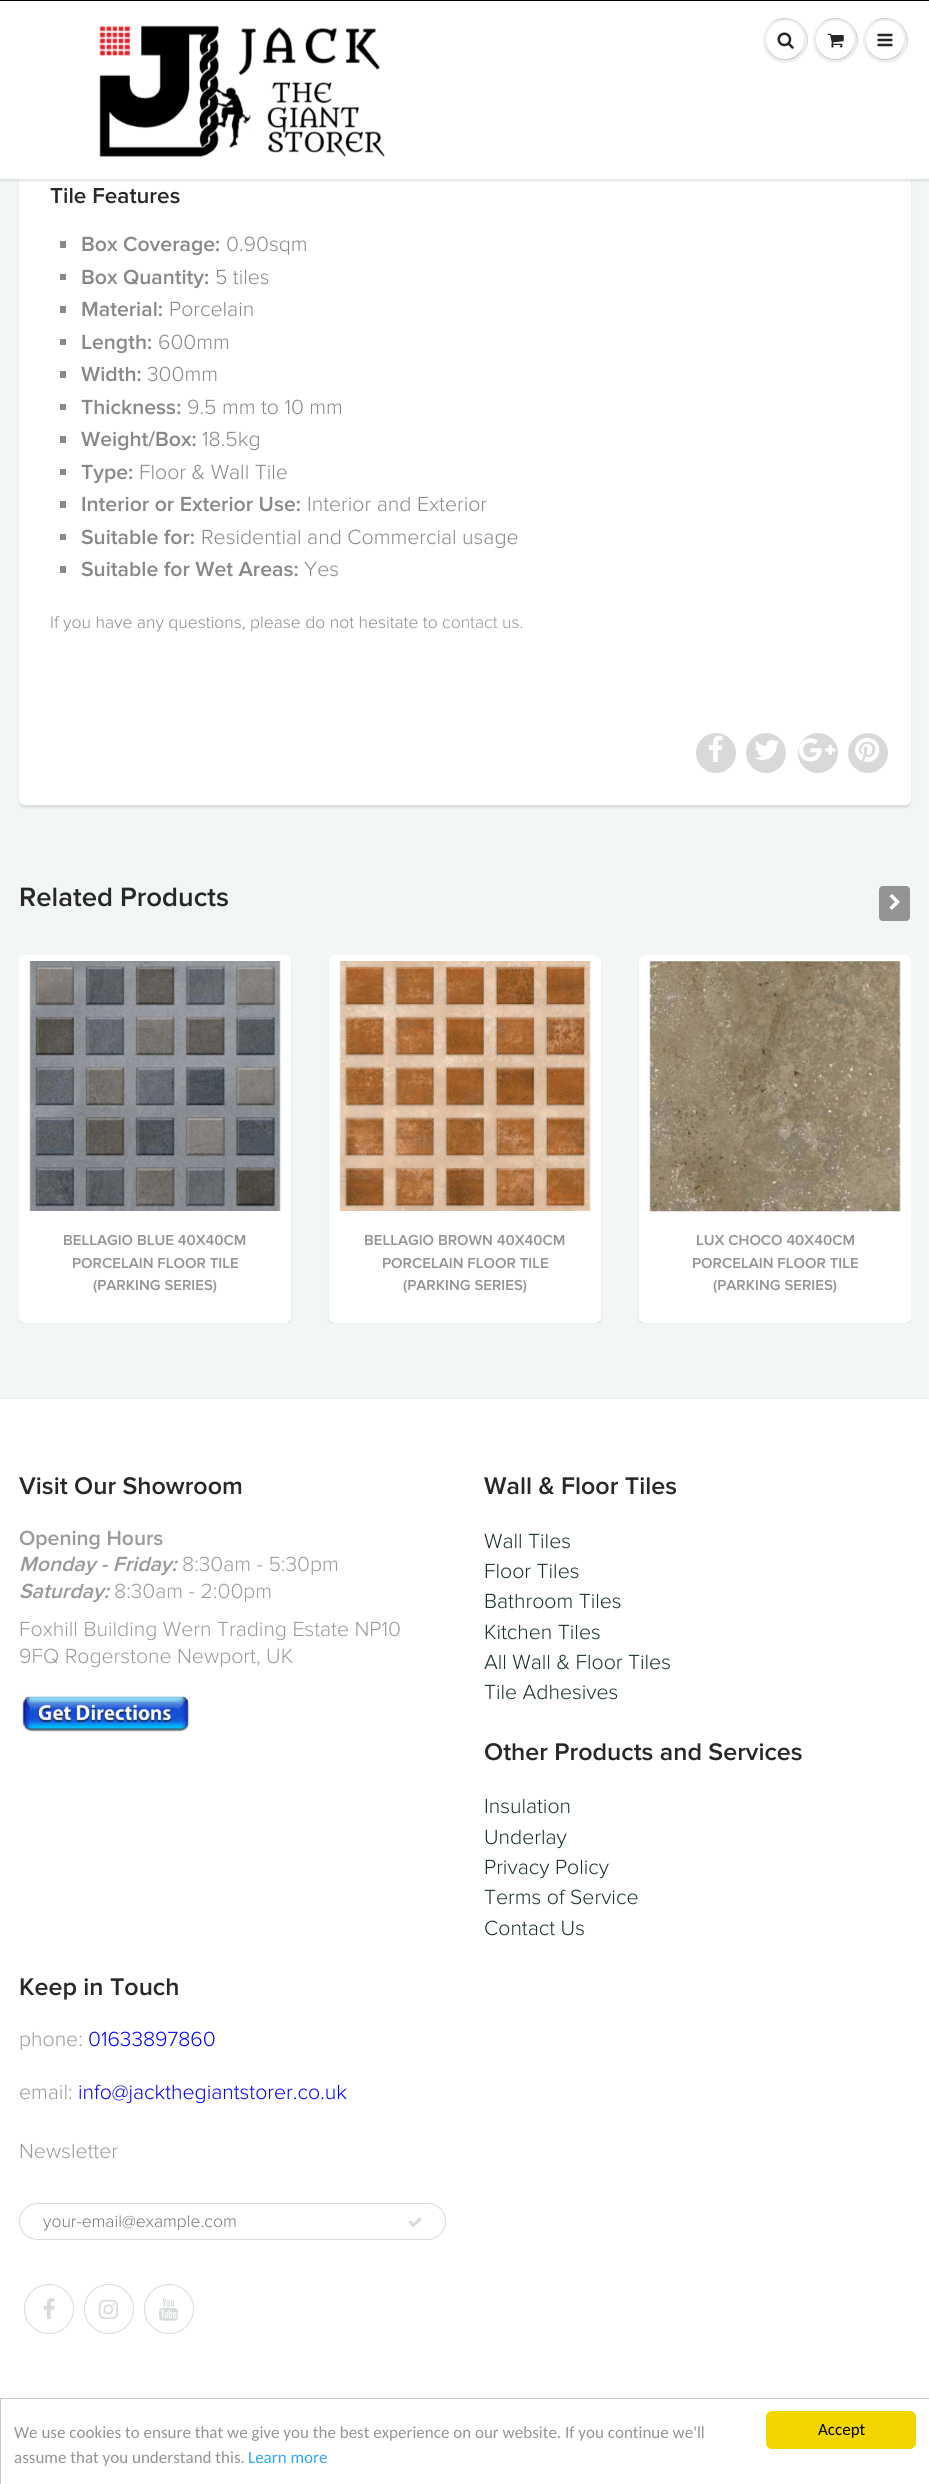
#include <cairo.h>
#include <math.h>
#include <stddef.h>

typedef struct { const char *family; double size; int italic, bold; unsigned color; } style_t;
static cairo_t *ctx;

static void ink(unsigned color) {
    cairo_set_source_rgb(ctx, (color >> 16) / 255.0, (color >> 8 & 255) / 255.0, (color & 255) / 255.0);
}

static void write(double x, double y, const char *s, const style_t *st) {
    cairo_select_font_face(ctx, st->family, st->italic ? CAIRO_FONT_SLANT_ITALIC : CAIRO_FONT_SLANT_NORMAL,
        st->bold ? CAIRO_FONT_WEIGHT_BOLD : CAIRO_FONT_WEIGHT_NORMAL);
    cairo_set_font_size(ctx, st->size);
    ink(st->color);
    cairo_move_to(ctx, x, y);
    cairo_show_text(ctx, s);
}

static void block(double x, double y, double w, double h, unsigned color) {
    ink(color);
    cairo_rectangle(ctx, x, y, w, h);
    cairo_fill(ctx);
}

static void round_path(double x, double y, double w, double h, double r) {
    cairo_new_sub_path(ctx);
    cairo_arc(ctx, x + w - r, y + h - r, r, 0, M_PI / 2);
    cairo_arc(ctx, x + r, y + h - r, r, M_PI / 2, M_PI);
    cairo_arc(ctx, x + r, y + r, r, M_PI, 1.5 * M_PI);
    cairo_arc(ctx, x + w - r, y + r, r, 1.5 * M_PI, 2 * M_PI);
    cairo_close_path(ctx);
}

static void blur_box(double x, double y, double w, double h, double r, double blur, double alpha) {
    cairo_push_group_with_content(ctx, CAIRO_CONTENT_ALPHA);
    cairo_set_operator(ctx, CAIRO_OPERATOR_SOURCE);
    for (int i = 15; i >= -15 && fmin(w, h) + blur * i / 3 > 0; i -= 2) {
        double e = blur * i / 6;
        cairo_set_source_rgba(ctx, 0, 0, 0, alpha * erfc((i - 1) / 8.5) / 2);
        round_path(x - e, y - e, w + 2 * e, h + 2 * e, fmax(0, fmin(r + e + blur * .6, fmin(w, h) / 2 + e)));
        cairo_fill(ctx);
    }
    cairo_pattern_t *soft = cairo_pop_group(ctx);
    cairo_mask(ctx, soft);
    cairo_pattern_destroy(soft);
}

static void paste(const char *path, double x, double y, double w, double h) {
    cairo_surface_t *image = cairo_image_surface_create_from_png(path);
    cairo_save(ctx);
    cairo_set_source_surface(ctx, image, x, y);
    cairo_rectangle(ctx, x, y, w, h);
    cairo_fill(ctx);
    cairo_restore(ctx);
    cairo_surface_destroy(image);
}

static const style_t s1 = {"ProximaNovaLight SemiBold", 22.5, 0, 0, 0x282827};
static const style_t s2 = {"ProximaNovaLight SemiBold", 21.25, 0, 0, 0x898989};
static const style_t s3 = {"ProximaNovaLight Light", 21.25, 0, 0, 0x898989};
static const style_t s4 = {"ProximaNovaLight Light", 17.5, 0, 0, 0x898989};
static const style_t s5 = {"ProximaNovaLight Light", 17.5, 0, 0, 0x949494};
static const style_t s6 = {"ProximaNovaLight SemiBold", 27.5, 0, 0, 0x282827};
static const style_t s7 = {"ProximaNovaLight SemiBold", 15, 0, 0, 0x949494};
static const style_t s8 = {"ProximaNovaLight SemiBold", 25, 0, 0, 0x282827};
static const style_t s9 = {"ProximaNovaLight SemiBold", 21.25, 0, 0, 0x9a9a9a};
static const style_t s10 = {"ProximaNovaLight SemiBold", 21.25, 1, 0, 0x9a9a9a};
static const style_t s11 = {"ProximaNovaLight Light", 21.25, 0, 0, 0x9a9a9a};
static const style_t s12 = {"ProximaNovaLight Light", 21.25, 0, 0, 0x19322f};
static const style_t s13 = {"ProximaNovaLight Light", 21.25, 0, 0, 0x0000ff};
static const style_t s14 = {"ProximaNovaLight Light", 17.5, 0, 0, 0x757575};
static const style_t s15 = {"Carlito", 17, 0, 0, 0x949494};
static const style_t s16 = {"Carlito", 17, 0, 0, 0x31a8f0};
static const style_t s17 = {"Carlito", 17, 0, 0, 0x000000};

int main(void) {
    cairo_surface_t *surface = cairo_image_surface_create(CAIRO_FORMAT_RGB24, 929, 2484);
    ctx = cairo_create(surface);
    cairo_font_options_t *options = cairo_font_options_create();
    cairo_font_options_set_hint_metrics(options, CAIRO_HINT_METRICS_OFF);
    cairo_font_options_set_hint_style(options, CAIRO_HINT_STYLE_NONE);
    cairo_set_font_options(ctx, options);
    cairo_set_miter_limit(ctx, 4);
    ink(0xffffff);
    cairo_paint(ctx);
    block(0, 179, 929, 1219, 0xf3f6f6);
    ink(0x0b191c);
    blur_box(19, -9, 892, 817, 6, 1, 0.1);
    ink(0xffffff);
    round_path(19, -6, 892, 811, 6);
    cairo_fill(ctx);
    ink(0x0b191c);
    blur_box(0, 3, 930, 178, 0, 1, 0.12);
    block(0, 1, 929, 178, 0xffffff);
    block(0, 0, 929, 1, 0x000000);
    paste("pic1.png", 99, 25, 286, 132);
    ink(0xedefef);
    cairo_arc(ctx, 785.5, 40.5, 22.5, 0, 2 * M_PI);
    cairo_fill(ctx);
    ink(0xc9cbcb);
    cairo_new_path(ctx);
    cairo_move_to(ctx, 785, 19);
    cairo_curve_to(ctx, 803, 19, 810, 36, 806, 49);
    cairo_curve_to(ctx, 815, 27, 787, 8, 770, 24);
    cairo_curve_to(ctx, 774, 21, 779, 19, 785, 19);
    cairo_close_path(ctx);
    cairo_fill(ctx);
    cairo_new_path(ctx);
    cairo_move_to(ctx, 766.5, 37.5);
    cairo_curve_to(ctx, 762, 58, 789.5, 68.5, 801, 52);
    cairo_curve_to(ctx, 803.5, 47.5, 804.5, 42.5, 803.5, 37.5);
    cairo_curve_to(ctx, 804, 42, 803, 47, 800.5, 50.5);
    cairo_curve_to(ctx, 789.5, 66.5, 764, 57, 766.5, 37.5);
    cairo_close_path(ctx);
    cairo_fill(ctx);
    ink(0xffffff);
    cairo_arc(ctx, 785, 40, 19, 0, 2 * M_PI);
    cairo_fill(ctx);
    cairo_new_path(ctx);
    cairo_move_to(ctx, 785, 22);
    cairo_curve_to(ctx, 799, 22, 805, 34, 803, 44);
    cairo_curve_to(ctx, 805, 39, 804, 34, 801, 29);
    cairo_curve_to(ctx, 789, 12, 762, 24, 767, 44);
    cairo_curve_to(ctx, 765, 34, 771, 22, 785, 22);
    cairo_close_path(ctx);
    cairo_fill(ctx);
    paste("pic2.png", 777, 32, 17, 17);
    ink(0xedefef);
    cairo_arc(ctx, 835.5, 40.5, 22.5, 0, 2 * M_PI);
    cairo_fill(ctx);
    ink(0xc9cbcb);
    cairo_new_path(ctx);
    cairo_move_to(ctx, 835, 19);
    cairo_curve_to(ctx, 853, 19, 860, 36, 856, 49);
    cairo_curve_to(ctx, 865, 27, 837, 8, 820, 24);
    cairo_curve_to(ctx, 824, 21, 829, 19, 835, 19);
    cairo_close_path(ctx);
    cairo_fill(ctx);
    cairo_new_path(ctx);
    cairo_move_to(ctx, 816.5, 37.5);
    cairo_curve_to(ctx, 812, 58, 839.5, 68.5, 851, 52);
    cairo_curve_to(ctx, 853.5, 47.5, 854.5, 42.5, 853.5, 37.5);
    cairo_curve_to(ctx, 856, 57, 830.5, 66.5, 819.5, 50.5);
    cairo_curve_to(ctx, 817, 47, 816, 42, 816.5, 37.5);
    cairo_close_path(ctx);
    cairo_fill(ctx);
    ink(0xffffff);
    cairo_arc(ctx, 835, 40, 19, 0, 2 * M_PI);
    cairo_fill(ctx);
    cairo_new_path(ctx);
    cairo_move_to(ctx, 835, 22);
    cairo_curve_to(ctx, 849, 22, 855, 34, 853, 44);
    cairo_curve_to(ctx, 855, 39, 854, 34, 851, 29);
    cairo_curve_to(ctx, 839, 12, 812, 24, 817, 44);
    cairo_curve_to(ctx, 815, 34, 821, 22, 835, 22);
    cairo_close_path(ctx);
    cairo_fill(ctx);
    paste("pic3.png", 827, 33, 17, 15);
    ink(0xedefef);
    cairo_arc(ctx, 885.5, 40.5, 22.5, 0, 2 * M_PI);
    cairo_fill(ctx);
    ink(0xc9cbcb);
    cairo_new_path(ctx);
    cairo_move_to(ctx, 885, 19);
    cairo_curve_to(ctx, 903, 19, 910, 36, 906, 49);
    cairo_curve_to(ctx, 915, 27, 887, 8, 870, 24);
    cairo_curve_to(ctx, 874, 21, 879, 19, 885, 19);
    cairo_close_path(ctx);
    cairo_fill(ctx);
    cairo_new_path(ctx);
    cairo_move_to(ctx, 866.5, 37.5);
    cairo_curve_to(ctx, 862, 58, 889.5, 68.5, 901, 52);
    cairo_curve_to(ctx, 903.5, 47.5, 904.5, 42.5, 903.5, 37.5);
    cairo_curve_to(ctx, 906, 57, 880.5, 66.5, 869.5, 50.5);
    cairo_curve_to(ctx, 867, 47, 866, 42, 866.5, 37.5);
    cairo_close_path(ctx);
    cairo_fill(ctx);
    ink(0xffffff);
    cairo_arc(ctx, 885, 40, 19, 0, 2 * M_PI);
    cairo_fill(ctx);
    cairo_new_path(ctx);
    cairo_move_to(ctx, 885, 22);
    cairo_curve_to(ctx, 899, 22, 905, 34, 903, 44);
    cairo_curve_to(ctx, 905, 39, 904, 34, 901, 29);
    cairo_curve_to(ctx, 889, 12, 862, 24, 867, 44);
    cairo_curve_to(ctx, 865, 34, 871, 22, 885, 22);
    cairo_close_path(ctx);
    cairo_fill(ctx);
    paste("pic4.png", 877, 33, 16, 14);
    write(50, 203, "Tile Features", &s1);
    block(60, 241, 6, 7, 0x898989);
    write(81, 251, "Box Coverage:", &s2);
    write(226, 251, "0.90sqm", &s3);
    block(60, 274, 6, 6, 0x898989);
    write(81, 284, "Box Quantity:", &s2);
    write(215, 284, "5 tiles", &s3);
    block(60, 306, 6, 7, 0x898989);
    write(81, 316, "Material:", &s2);
    write(169, 316, "Porcelain", &s3);
    block(60, 339, 6, 6, 0x898989);
    write(81, 349, "Length:", &s2);
    write(158, 349, "600mm", &s3);
    block(60, 371, 6, 7, 0x898989);
    write(81, 381, "Width:", &s2);
    write(147, 381, "300mm", &s3);
    block(60, 404, 6, 6, 0x898989);
    write(81, 414, "Thickness:", &s2);
    write(187, 414, "9.5 mm to 10 mm", &s3);
    block(60, 436, 6, 7, 0x898989);
    write(81, 446, "Weight/Box:", &s2);
    write(202, 446, "18.5kg", &s3);
    block(60, 469, 6, 6, 0x898989);
    write(81, 479, "Type:", &s2);
    write(139, 479, "Floor & Wall Tile", &s3);
    block(60, 501, 6, 7, 0x898989);
    write(81, 511, "Interior or Exterior Use:", &s2);
    write(307, 511, "Interior and Exterior", &s3);
    block(60, 534, 6, 6, 0x898989);
    write(81, 544, "Suitable for:", &s2);
    write(201, 544, "Residential and Commercial usage", &s3);
    block(60, 566, 6, 7, 0x898989);
    write(81, 576, "Suitable for Wet Areas:", &s2);
    write(304, 576, "Yes", &s3);
    write(50, 628, "If you have any questions, please do not hesitate to", &s4);
    write(442, 628, "contact us.", &s5);
    ink(0xd9d9d9);
    cairo_new_path(ctx);
    cairo_arc(ctx, 716, 753, 20, 0, 2 * M_PI);
    cairo_fill(ctx);
    paste("pic5.png", 709, 735, 14, 27);
    cairo_arc(ctx, 766, 753, 20, 0, 2 * M_PI);
    cairo_fill(ctx);
    paste("pic6.png", 755, 739, 24, 21);
    cairo_arc(ctx, 818, 753, 20, 0, 2 * M_PI);
    cairo_fill(ctx);
    paste("pic7.png", 798, 738, 38, 24);
    cairo_arc(ctx, 868, 753, 20, 0, 2 * M_PI);
    cairo_fill(ctx);
    paste("pic8.png", 855, 737, 25, 25);
    write(19, 906, "Related Products", &s6);
    ink(0x949494);
    round_path(879, 886, 31, 35, 4);
    cairo_fill(ctx);
    paste("pic9.png", 889, 894, 11, 16);
    cairo_save(ctx);
    cairo_rectangle(ctx, 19, 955, 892, 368);
    cairo_clip(ctx);
    ink(0x0b191c);
    blur_box(19, 958, 272, 367, 6, 1, 0.1);
    cairo_restore(ctx);
    ink(0xffffff);
    round_path(22, 958, 266, 362, 3);
    cairo_fill_preserve(ctx);
    cairo_set_line_width(ctx, 6);
    cairo_stroke(ctx);
    paste("pic10.png", 29, 961, 252, 250);
    write(63, 1245, "BELLAGIO BLUE 40X40CM", &s7);
    write(72, 1268, "PORCELAIN FLOOR TILE", &s7);
    write(93, 1290, "(PARKING SERIES)", &s7);
    cairo_save(ctx);
    cairo_rectangle(ctx, 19, 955, 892, 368);
    cairo_clip(ctx);
    ink(0x0b191c);
    blur_box(329, 958, 272, 367, 6, 1, 0.1);
    cairo_restore(ctx);
    ink(0xffffff);
    round_path(332, 958, 266, 362, 3);
    cairo_fill_preserve(ctx);
    cairo_stroke(ctx);
    paste("pic11.png", 339, 961, 252, 250);
    write(364, 1245, "BELLAGIO BROWN 40X40CM", &s7);
    write(382, 1268, "PORCELAIN FLOOR TILE", &s7);
    write(403, 1290, "(PARKING SERIES)", &s7);
    cairo_save(ctx);
    cairo_rectangle(ctx, 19, 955, 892, 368);
    cairo_clip(ctx);
    ink(0x0b191c);
    blur_box(639, 958, 272, 367, 6, 1, 0.1);
    cairo_restore(ctx);
    ink(0xffffff);
    round_path(642, 958, 266, 362, 3);
    cairo_fill_preserve(ctx);
    cairo_stroke(ctx);
    paste("pic12.png", 649, 961, 252, 251);
    write(696, 1245, "LUX CHOCO 40X40CM", &s7);
    write(692, 1268, "PORCELAIN FLOOR TILE", &s7);
    write(713, 1290, "(PARKING SERIES)", &s7);
    block(0, 1398, 929, 1, 0xecefef);
    write(19, 1494, "Visit Our Showroom", &s8);
    write(19, 1545, "Opening Hours", &s9);
    write(19, 1571, "Monday - Friday:", &s10);
    write(182, 1571, "8:30am - 5:30pm", &s11);
    write(19, 1598, "Saturday:", &s10);
    write(114, 1598, "8:30am - 2:00pm", &s11);
    write(19, 1636, "Foxhill Building Wern Trading Estate NP10", &s11);
    write(19, 1663, "9FQ Rogerstone Newport, UK", &s11);
    paste("pic13.png", 22, 1695, 168, 37);
    write(484, 1494, "Wall & Floor Tiles", &s8);
    write(484, 1548, "Wall Tiles", &s12);
    write(484, 1578, "Floor Tiles", &s12);
    write(484, 1608, "Bathroom Tiles", &s12);
    write(484, 1639, "Kitchen Tiles", &s12);
    write(484, 1669, "All Wall & Floor Tiles", &s12);
    write(484, 1699, "Tile Adhesives", &s12);
    write(484, 1760, "Other Products and Services", &s8);
    write(484, 1813, "Insulation", &s12);
    write(484, 1844, "Underlay", &s12);
    write(484, 1874, "Privacy Policy", &s12);
    write(484, 1904, "Terms of Service", &s12);
    write(484, 1935, "Contact Us", &s12);
    write(19, 1995, "Keep in Touch", &s8);
    write(19, 2046, "phone:", &s11);
    write(88, 2046, "01633897860", &s13);
    write(19, 2099, "email:", &s11);
    write(78, 2099, "info@jackthegiantstorer.co.uk", &s13);
    write(19, 2158, "Newsletter", &s11);
    round_path(19.5, 2203.5, 426, 36, 18);
    ink(0xd7dbdb);
    cairo_set_line_width(ctx, 1);
    cairo_stroke(ctx);
    write(43, 2227, "your-email@example.com", &s14);
    paste("pic14.png", 408, 2217, 14, 11);
    cairo_arc(ctx, 49, 2309, 24.5, 0, 2 * M_PI);
    ink(0xd7dbdb);
    cairo_stroke(ctx);
    paste("pic15.png", 43, 2298, 12, 22);
    cairo_arc(ctx, 109, 2309, 24.5, 0, 2 * M_PI);
    cairo_stroke(ctx);
    paste("pic16.png", 98, 2299, 20, 21);
    cairo_arc(ctx, 169, 2309, 24.5, 0, 2 * M_PI);
    cairo_stroke(ctx);
    paste("pic17.png", 159, 2298, 19, 23);
    cairo_rectangle(ctx, 0.5, 2398.5, 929, 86);
    ink(0xcccccc);
    cairo_stroke(ctx);
    write(14, 2438, "We use cookies to ensure that we give you the best experience on our website. If you continue we'll", &s15);
    write(14, 2463, "assume that you understand this.", &s15);
    write(248, 2463, "Learn more", &s16);
    ink(0xf1d600);
    round_path(766, 2411, 150, 38, 6);
    cairo_fill(ctx);
    write(818, 2435, "Accept", &s17);
    cairo_surface_write_to_png(surface, "screenshot.png");
    cairo_font_options_destroy(options);
    cairo_destroy(ctx);
    cairo_surface_destroy(surface);
    return 0;
}
